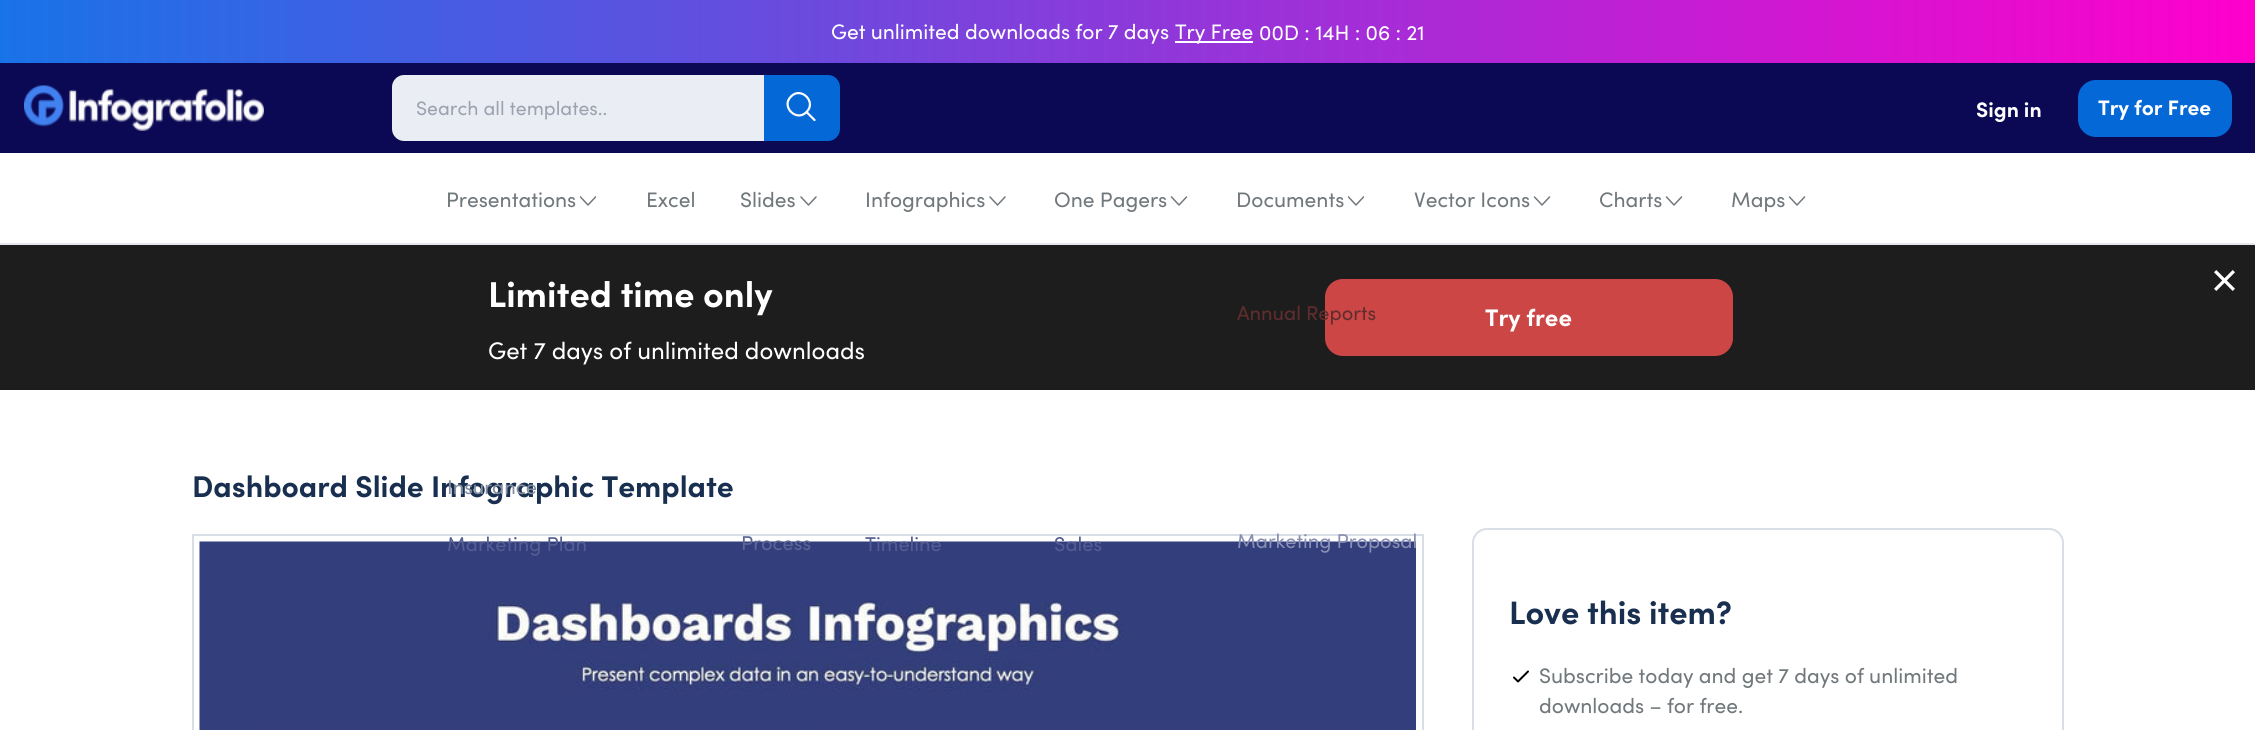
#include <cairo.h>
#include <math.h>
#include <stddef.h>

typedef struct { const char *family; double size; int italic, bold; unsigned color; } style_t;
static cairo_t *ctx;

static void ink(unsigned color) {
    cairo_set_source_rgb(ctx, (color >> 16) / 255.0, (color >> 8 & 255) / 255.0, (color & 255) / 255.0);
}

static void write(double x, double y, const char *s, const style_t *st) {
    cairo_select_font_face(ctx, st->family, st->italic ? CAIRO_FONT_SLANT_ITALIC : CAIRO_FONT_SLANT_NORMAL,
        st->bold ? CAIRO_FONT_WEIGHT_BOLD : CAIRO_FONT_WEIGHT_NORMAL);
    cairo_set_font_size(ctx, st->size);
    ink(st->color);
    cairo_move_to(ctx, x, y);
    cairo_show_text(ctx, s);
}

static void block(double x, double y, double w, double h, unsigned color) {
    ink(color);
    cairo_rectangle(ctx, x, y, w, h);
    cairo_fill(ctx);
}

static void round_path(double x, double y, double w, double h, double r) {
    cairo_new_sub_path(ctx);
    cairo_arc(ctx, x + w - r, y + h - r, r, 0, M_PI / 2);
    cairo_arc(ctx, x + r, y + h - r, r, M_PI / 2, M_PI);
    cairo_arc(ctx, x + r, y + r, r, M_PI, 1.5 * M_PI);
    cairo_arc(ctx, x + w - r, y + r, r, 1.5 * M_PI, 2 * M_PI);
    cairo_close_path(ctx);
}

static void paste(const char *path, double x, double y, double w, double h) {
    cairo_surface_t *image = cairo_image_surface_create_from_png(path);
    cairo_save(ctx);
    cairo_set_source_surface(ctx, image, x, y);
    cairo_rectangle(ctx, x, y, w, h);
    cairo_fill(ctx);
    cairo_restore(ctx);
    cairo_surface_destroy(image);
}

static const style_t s1 = {"Sofia", 21, 0, 0, 0xffffff};
static const style_t s2 = {"Sofia", 19.5, 0, 0, 0x9ca3af};
static const style_t s3 = {"Sofia", 21, 0, 1, 0xffffff};
static const style_t s4 = {"Sofia", 21, 0, 0, 0x71787c};
static const style_t s5 = {"Sofia", 30, 0, 1, 0x192f50};
static const style_t s6 = {"Sofia", 20, 0, 0, 0x838fa1};
static const style_t s7 = {"Sofia", 20, 0, 0, 0x535d91};
static const style_t s8 = {"Sofia", 20, 0, 0, 0x5c6597};
static const style_t s9 = {"Sofia", 20, 0, 0, 0x602d2d};
static const style_t s10 = {"Sofia", 20, 0, 0, 0x888fb3};
static const style_t s11 = {"Sofia", 36, 0, 1, 0xffffff};
static const style_t s12 = {"Sofia", 24, 0, 0, 0xffffff};
static const style_t s13 = {"Sofia", 24, 0, 1, 0xffffff};
static const style_t s14 = {"Sofia", 32.5, 0, 1, 0x192f50};

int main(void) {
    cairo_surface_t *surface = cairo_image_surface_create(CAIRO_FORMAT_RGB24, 2255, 730);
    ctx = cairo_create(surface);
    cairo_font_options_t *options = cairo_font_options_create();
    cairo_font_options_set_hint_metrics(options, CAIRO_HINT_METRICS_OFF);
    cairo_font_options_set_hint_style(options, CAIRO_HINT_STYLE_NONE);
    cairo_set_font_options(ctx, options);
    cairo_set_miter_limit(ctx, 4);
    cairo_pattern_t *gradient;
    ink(0xffffff);
    cairo_paint(ctx);
    gradient = cairo_pattern_create_linear(0, 32, 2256, 31);
    cairo_pattern_add_color_stop_rgba(gradient, 0, 0.098, 0.451, 0.91, 1);
    cairo_pattern_add_color_stop_rgba(gradient, 1, 1, 0, 0.8, 1);
    cairo_set_source(ctx, gradient);
    cairo_pattern_destroy(gradient);
    cairo_rectangle(ctx, 0, 0, 2255, 63);
    cairo_fill(ctx);
    write(831, 39, "Get unlimited downloads for 7 days", &s1);
    block(1175, 41, 78, 2, 0xffffff);
    write(1175, 39, "Try Free", &s1);
    write(1259, 40, "00D : 14H : 06 : 21", &s1);
    block(0, 63, 2255, 90, 0x0b0953);
    paste("pic1.png", 24, 85, 240, 46);
    ink(0xebedf5);
    cairo_new_path(ctx);
    cairo_move_to(ctx, 404, 75);
    cairo_line_to(ctx, 764, 75);
    cairo_line_to(ctx, 764, 141);
    cairo_line_to(ctx, 404, 141);
    cairo_curve_to(ctx, 397.5, 141, 392, 135.5, 392, 129);
    cairo_line_to(ctx, 392, 87);
    cairo_curve_to(ctx, 392, 80.5, 397.5, 75, 404, 75);
    cairo_close_path(ctx);
    cairo_fill(ctx);
    write(416, 115, "Search all templates..", &s2);
    ink(0x0469d7);
    cairo_new_path(ctx);
    cairo_move_to(ctx, 764, 75);
    cairo_line_to(ctx, 828, 75);
    cairo_curve_to(ctx, 834.5, 75, 840, 80.5, 840, 87);
    cairo_line_to(ctx, 840, 129);
    cairo_curve_to(ctx, 840, 135.5, 834.5, 141, 828, 141);
    cairo_line_to(ctx, 764, 141);
    cairo_close_path(ctx);
    cairo_fill(ctx);
    cairo_new_path(ctx);
    cairo_move_to(ctx, 814.5, 120);
    cairo_line_to(ctx, 806.5, 112);
    cairo_move_to(ctx, 806.5, 112);
    cairo_curve_to(ctx, 817, 102, 801, 86, 791, 96.5);
    cairo_curve_to(ctx, 780.5, 106.5, 796.5, 122.5, 806.5, 112);
    cairo_close_path(ctx);
    ink(0xffffff);
    cairo_set_line_width(ctx, 2.2);
    cairo_set_line_cap(ctx, CAIRO_LINE_CAP_ROUND);
    cairo_set_line_join(ctx, CAIRO_LINE_JOIN_ROUND);
    cairo_stroke(ctx);
    write(1976, 117, "Sign in", &s3);
    ink(0x0469d7);
    round_path(2078, 80, 154, 57, 18);
    cairo_fill(ctx);
    write(2098, 115, "Try for Free", &s3);
    block(0, 243, 2255, 2, 0xe5e7eb);
    write(446, 207, "Presentations", &s4);
    cairo_new_path(ctx);
    cairo_move_to(ctx, 595.5, 197);
    cairo_line_to(ctx, 588, 205);
    cairo_line_to(ctx, 580.5, 197);
    cairo_set_line_width(ctx, 1.5);
    cairo_stroke(ctx);
    write(192, 497, "Dashboard Slide Infographic Template", &s5);
    write(447, 494, "Insurance", &s6);
    cairo_rectangle(ctx, 193, 535, 1230, 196);
    ink(0xd9dde6);
    cairo_set_line_width(ctx, 2);
    cairo_set_line_cap(ctx, CAIRO_LINE_CAP_BUTT);
    cairo_set_line_join(ctx, CAIRO_LINE_JOIN_MITER);
    cairo_stroke(ctx);
    paste("pic3.png", 199, 541, 1217, 189);
    write(447, 551, "Marketing Plan", &s7);
    write(646, 207, "Excel", &s4);
    write(740, 207, "Slides", &s4);
    cairo_new_path(ctx);
    cairo_move_to(ctx, 816, 197);
    cairo_line_to(ctx, 808.5, 205);
    cairo_line_to(ctx, 801, 197);
    cairo_set_line_width(ctx, 1.5);
    cairo_set_line_cap(ctx, CAIRO_LINE_CAP_ROUND);
    cairo_set_line_join(ctx, CAIRO_LINE_JOIN_ROUND);
    cairo_stroke(ctx);
    write(741, 550, "Process", &s8);
    write(865, 207, "Infographics", &s4);
    cairo_new_path(ctx);
    cairo_move_to(ctx, 1005, 197);
    cairo_line_to(ctx, 997.5, 205);
    cairo_line_to(ctx, 990, 197);
    cairo_stroke(ctx);
    write(865, 551, "Timeline", &s7);
    write(1054, 207, "One Pagers", &s4);
    cairo_new_path(ctx);
    cairo_move_to(ctx, 1186.5, 197);
    cairo_line_to(ctx, 1179, 205);
    cairo_line_to(ctx, 1171.5, 197);
    cairo_stroke(ctx);
    write(1054, 551, "Sales", &s7);
    write(1236, 207, "Documents", &s4);
    cairo_new_path(ctx);
    cairo_move_to(ctx, 1363.5, 197);
    cairo_line_to(ctx, 1356, 205);
    cairo_line_to(ctx, 1348.5, 197);
    cairo_stroke(ctx);
    block(0, 245, 2255, 145, 0x1d1d1d);
    ink(0xcc4646);
    round_path(1326, 280, 406, 75, 17);
    cairo_fill_preserve(ctx);
    cairo_set_line_width(ctx, 2);
    cairo_set_line_cap(ctx, CAIRO_LINE_CAP_BUTT);
    cairo_set_line_join(ctx, CAIRO_LINE_JOIN_MITER);
    cairo_stroke(ctx);
    write(1237, 320, "Annual Reports", &s9);
    write(1237, 548, "Marketing Proposal", &s10);
    write(1414, 207, "Vector Icons", &s4);
    cairo_new_path(ctx);
    cairo_move_to(ctx, 1549.5, 197);
    cairo_line_to(ctx, 1542, 205);
    cairo_line_to(ctx, 1534.5, 197);
    cairo_set_line_width(ctx, 1.5);
    cairo_set_line_cap(ctx, CAIRO_LINE_CAP_ROUND);
    cairo_set_line_join(ctx, CAIRO_LINE_JOIN_ROUND);
    cairo_stroke(ctx);
    write(1599, 207, "Charts", &s4);
    cairo_new_path(ctx);
    cairo_move_to(ctx, 1681.5, 197);
    cairo_line_to(ctx, 1674, 205);
    cairo_line_to(ctx, 1666.5, 197);
    cairo_stroke(ctx);
    write(1731, 207, "Maps", &s4);
    cairo_new_path(ctx);
    cairo_move_to(ctx, 1804.5, 197);
    cairo_line_to(ctx, 1797, 205);
    cairo_line_to(ctx, 1789.5, 197);
    cairo_stroke(ctx);
    write(488, 307, "Limited time only", &s11);
    write(488, 359, "Get 7 days of unlimited downloads", &s12);
    write(1485, 326, "Try free", &s13);
    paste("pic2.png", 2214, 270, 21, 21);
    round_path(1473, 529, 590, 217, 14);
    ink(0xd9dde6);
    cairo_set_line_width(ctx, 2);
    cairo_set_line_cap(ctx, CAIRO_LINE_CAP_BUTT);
    cairo_set_line_join(ctx, CAIRO_LINE_JOIN_MITER);
    cairo_stroke(ctx);
    write(1509, 624, "Love this item?", &s14);
    cairo_new_path(ctx);
    cairo_move_to(ctx, 1514, 677.5);
    cairo_line_to(ctx, 1518, 681.5);
    cairo_line_to(ctx, 1528, 671.5);
    ink(0x000000);
    cairo_set_line_cap(ctx, CAIRO_LINE_CAP_ROUND);
    cairo_set_line_join(ctx, CAIRO_LINE_JOIN_ROUND);
    cairo_stroke(ctx);
    write(1539, 683, "Subscribe today and get 7 days of unlimited", &s4);
    write(1539, 713, "downloads – for free.", &s4);
    cairo_surface_write_to_png(surface, "screenshot.png");
    cairo_font_options_destroy(options);
    cairo_destroy(ctx);
    cairo_surface_destroy(surface);
    return 0;
}
